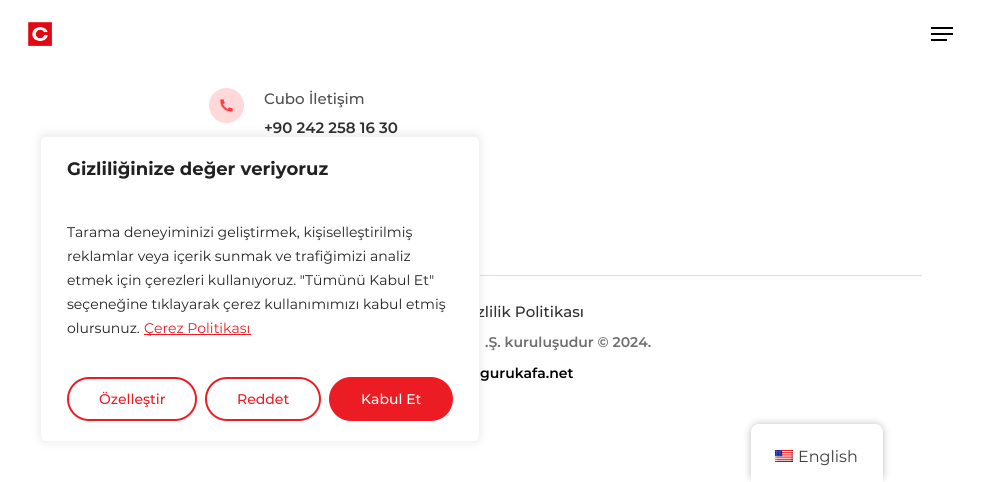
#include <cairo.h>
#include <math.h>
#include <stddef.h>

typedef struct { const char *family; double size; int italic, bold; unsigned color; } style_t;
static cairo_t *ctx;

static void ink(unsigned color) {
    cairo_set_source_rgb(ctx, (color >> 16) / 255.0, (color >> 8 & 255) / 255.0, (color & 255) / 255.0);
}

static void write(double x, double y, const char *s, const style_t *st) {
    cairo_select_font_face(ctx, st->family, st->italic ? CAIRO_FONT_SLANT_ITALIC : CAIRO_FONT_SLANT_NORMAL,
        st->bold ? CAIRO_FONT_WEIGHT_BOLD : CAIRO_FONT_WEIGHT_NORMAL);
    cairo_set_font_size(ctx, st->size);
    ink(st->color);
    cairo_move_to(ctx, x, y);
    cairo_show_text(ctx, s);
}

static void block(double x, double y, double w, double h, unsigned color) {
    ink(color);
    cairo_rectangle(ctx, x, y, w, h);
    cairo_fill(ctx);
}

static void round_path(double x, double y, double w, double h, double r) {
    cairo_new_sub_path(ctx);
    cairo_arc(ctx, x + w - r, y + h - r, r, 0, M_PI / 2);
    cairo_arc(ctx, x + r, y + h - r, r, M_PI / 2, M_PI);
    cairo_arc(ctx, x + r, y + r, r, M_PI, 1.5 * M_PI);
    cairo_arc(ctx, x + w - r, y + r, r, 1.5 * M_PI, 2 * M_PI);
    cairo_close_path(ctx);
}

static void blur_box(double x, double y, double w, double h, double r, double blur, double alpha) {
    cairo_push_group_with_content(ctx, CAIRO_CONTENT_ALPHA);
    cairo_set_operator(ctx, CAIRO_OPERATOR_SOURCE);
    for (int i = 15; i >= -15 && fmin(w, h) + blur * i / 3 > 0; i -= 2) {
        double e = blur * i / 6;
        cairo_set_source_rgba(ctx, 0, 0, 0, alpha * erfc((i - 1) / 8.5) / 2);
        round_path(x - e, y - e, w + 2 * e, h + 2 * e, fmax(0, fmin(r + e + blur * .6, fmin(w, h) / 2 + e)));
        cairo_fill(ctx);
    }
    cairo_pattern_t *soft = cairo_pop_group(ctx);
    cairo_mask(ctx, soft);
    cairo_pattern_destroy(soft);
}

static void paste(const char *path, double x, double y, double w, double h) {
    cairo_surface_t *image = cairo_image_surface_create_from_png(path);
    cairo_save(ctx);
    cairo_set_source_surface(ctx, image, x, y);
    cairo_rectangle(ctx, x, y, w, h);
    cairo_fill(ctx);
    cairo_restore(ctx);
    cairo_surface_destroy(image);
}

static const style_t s1 = {"Montserrat Medium", 15, 0, 0, 0x2e2e2e};
static const style_t s2 = {"Montserrat", 18, 0, 1, 0x212121};
static const style_t s3 = {"Montserrat", 14, 0, 0, 0x212121};
static const style_t s4 = {"Montserrat", 14, 0, 0, 0xec1c24};
static const style_t s5 = {"Montserrat Medium", 14, 0, 0, 0xec1c24};
static const style_t s6 = {"Montserrat Medium", 14, 0, 0, 0xffffff};
static const style_t s7 = {"Montserrat Medium", 15, 0, 0, 0x4e4e4e};
static const style_t s8 = {"Montserrat SemiBold", 15, 0, 0, 0x2e2e2e};
static const style_t s9 = {"Montserrat SemiBold", 14, 0, 0, 0x6e6e6e};
static const style_t s10 = {"Montserrat SemiBold", 14, 0, 0, 0x000000};
static const style_t s11 = {"Montserrat", 16, 0, 0, 0x404040};

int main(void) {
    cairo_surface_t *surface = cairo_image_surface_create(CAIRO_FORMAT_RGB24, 981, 482);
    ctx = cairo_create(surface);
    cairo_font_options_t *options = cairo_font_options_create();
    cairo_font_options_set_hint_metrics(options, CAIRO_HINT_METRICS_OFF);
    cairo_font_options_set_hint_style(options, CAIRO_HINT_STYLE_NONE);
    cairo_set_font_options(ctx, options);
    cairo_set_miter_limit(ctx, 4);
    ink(0xffffff);
    cairo_paint(ctx);
    paste("pic2.png", 209, 88, 35, 35);
    block(480, 275, 442, 1, 0xe0e0e0);
    ink(0xacabab);
    blur_box(40, 135, 440, 306, 6, 5, 0.3);
    write(477, 317, "zlilik Politikası", &s1);
    ink(0xffffff);
    round_path(40.5, 136.5, 439, 305, 5.5);
    cairo_fill_preserve(ctx);
    ink(0xf4f4f4);
    cairo_set_line_width(ctx, 1);
    cairo_stroke(ctx);
    write(67, 175, "Gizliliğinize değer veriyoruz", &s2);
    write(67, 237, "Tarama deneyiminizi geliştirmek, kişiselleştirilmiş", &s3);
    write(67, 261, "reklamlar veya içerik sunmak ve trafiğimizi analiz", &s3);
    write(67, 285, "etmek için çerezleri kullanıyoruz. \"Tümünü Kabul Et\"", &s3);
    write(67, 309, "seçeneğine tıklayarak çerez kullanımımızı kabul etmiş", &s3);
    write(67, 333, "olursunuz.", &s3);
    block(144, 334, 107, 1, 0xec1c24);
    write(144, 333, "Çerez Politikası", &s4);
    round_path(68, 378, 128, 42, 21);
    cairo_set_line_width(ctx, 2);
    cairo_stroke(ctx);
    write(99, 404, "Özelleştir", &s5);
    round_path(206, 378, 114, 42, 21);
    cairo_stroke(ctx);
    write(237, 404, "Reddet", &s5);
    round_path(330, 378, 122, 42, 21);
    cairo_fill_preserve(ctx);
    cairo_stroke(ctx);
    write(361, 404, "Kabul Et", &s6);
    paste("pic1.png", 28, 22, 24, 24);
    block(931, 27, 22, 2, 0x000000);
    block(931, 39, 16, 2, 0x000000);
    block(931, 33, 22, 2, 0x000000);
    write(264, 104, "Cubo İletişim", &s7);
    write(264, 133, "+90 242 258 16 30", &s8);
    write(485, 347, ".Ş. kuruluşudur © 2024.", &s9);
    write(480, 378, "gurukafa.net", &s10);
    ink(0x000000);
    blur_box(751, 424, 132, 58, 8, 4, 0.25);
    ink(0xffffff);
    cairo_new_path(ctx);
    cairo_move_to(ctx, 759, 424);
    cairo_line_to(ctx, 875, 424);
    cairo_curve_to(ctx, 879.5, 424, 883, 427.5, 883, 432);
    cairo_line_to(ctx, 883, 482);
    cairo_line_to(ctx, 751, 482);
    cairo_line_to(ctx, 751, 432);
    cairo_curve_to(ctx, 751, 427.5, 754.5, 424, 759, 424);
    cairo_close_path(ctx);
    cairo_fill(ctx);
    paste("pic3.png", 775, 450, 18, 12);
    write(798, 462, "English", &s11);
    cairo_surface_write_to_png(surface, "screenshot.png");
    cairo_font_options_destroy(options);
    cairo_destroy(ctx);
    cairo_surface_destroy(surface);
    return 0;
}
